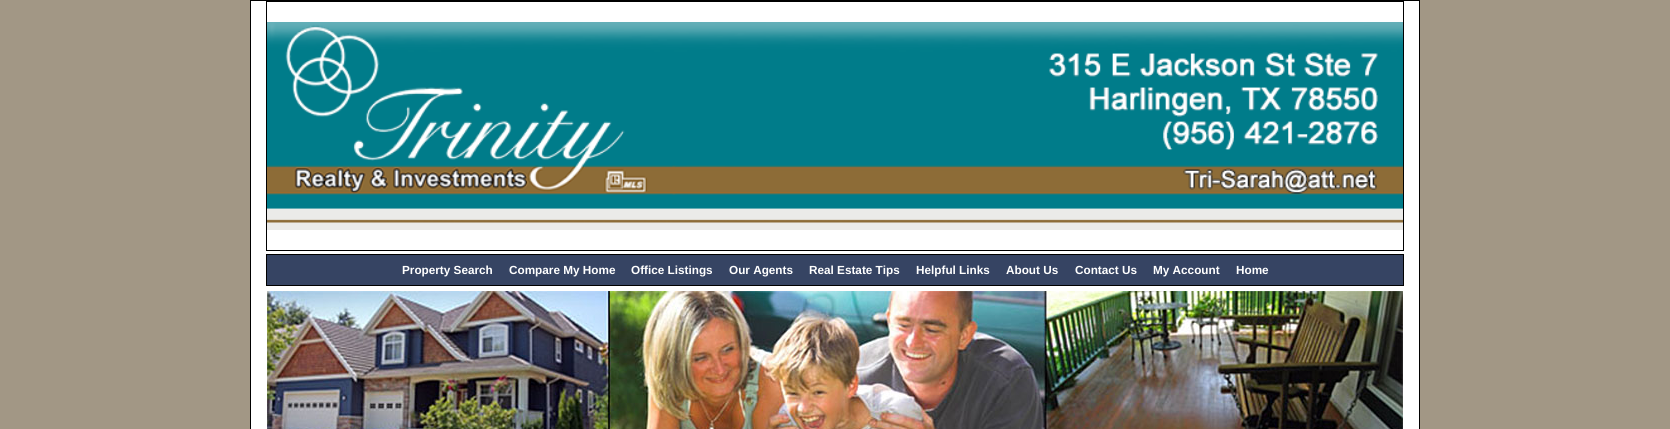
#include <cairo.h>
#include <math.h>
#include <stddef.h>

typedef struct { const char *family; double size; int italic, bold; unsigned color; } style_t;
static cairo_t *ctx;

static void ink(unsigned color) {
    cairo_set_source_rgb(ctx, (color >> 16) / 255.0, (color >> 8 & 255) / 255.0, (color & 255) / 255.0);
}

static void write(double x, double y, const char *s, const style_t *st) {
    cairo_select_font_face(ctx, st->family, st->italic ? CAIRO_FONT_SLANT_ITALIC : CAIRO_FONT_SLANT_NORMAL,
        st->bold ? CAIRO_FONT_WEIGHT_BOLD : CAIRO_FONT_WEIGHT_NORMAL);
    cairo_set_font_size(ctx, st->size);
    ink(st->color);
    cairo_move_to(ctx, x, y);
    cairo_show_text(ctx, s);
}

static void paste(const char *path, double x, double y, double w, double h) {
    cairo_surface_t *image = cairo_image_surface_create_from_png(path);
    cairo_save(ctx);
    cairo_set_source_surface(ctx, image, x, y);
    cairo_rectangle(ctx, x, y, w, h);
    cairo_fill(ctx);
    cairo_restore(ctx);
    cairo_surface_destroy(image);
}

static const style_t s1 = {"Liberation Sans", 11.75, 0, 1, 0xffffff};

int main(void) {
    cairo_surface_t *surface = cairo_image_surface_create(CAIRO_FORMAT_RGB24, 1670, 429);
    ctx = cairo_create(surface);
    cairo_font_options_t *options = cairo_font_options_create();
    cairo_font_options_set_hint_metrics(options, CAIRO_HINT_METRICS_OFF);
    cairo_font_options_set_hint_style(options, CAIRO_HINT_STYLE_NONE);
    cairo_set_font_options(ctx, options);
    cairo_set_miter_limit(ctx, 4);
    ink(0xa29785);
    cairo_paint(ctx);
    ink(0xffffff);
    cairo_rectangle(ctx, 250.5, 0.5, 1169, 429);
    cairo_fill_preserve(ctx);
    ink(0x000000);
    cairo_set_line_width(ctx, 1);
    cairo_stroke(ctx);
    cairo_rectangle(ctx, 266.5, 1.5, 1137, 249);
    cairo_stroke(ctx);
    paste("pic1.png", 267, 22, 1136, 208);
    ink(0x364463);
    cairo_rectangle(ctx, 266.5, 254.5, 1137, 31);
    cairo_fill_preserve(ctx);
    ink(0x000000);
    cairo_stroke(ctx);
    write(402, 274, "Property Search", &s1);
    write(509, 274, "Compare My Home", &s1);
    write(631, 274, "Office Listings", &s1);
    write(729, 274, "Our Agents", &s1);
    write(809, 274, "Real Estate Tips", &s1);
    write(916, 274, "Helpful Links", &s1);
    write(1006, 274, "About Us", &s1);
    write(1075, 274, "Contact Us", &s1);
    write(1153, 274, "My Account", &s1);
    write(1236, 274, "Home", &s1);
    paste("pic2.png", 267, 291, 1136, 138);
    cairo_surface_write_to_png(surface, "screenshot.png");
    cairo_font_options_destroy(options);
    cairo_destroy(ctx);
    cairo_surface_destroy(surface);
    return 0;
}
